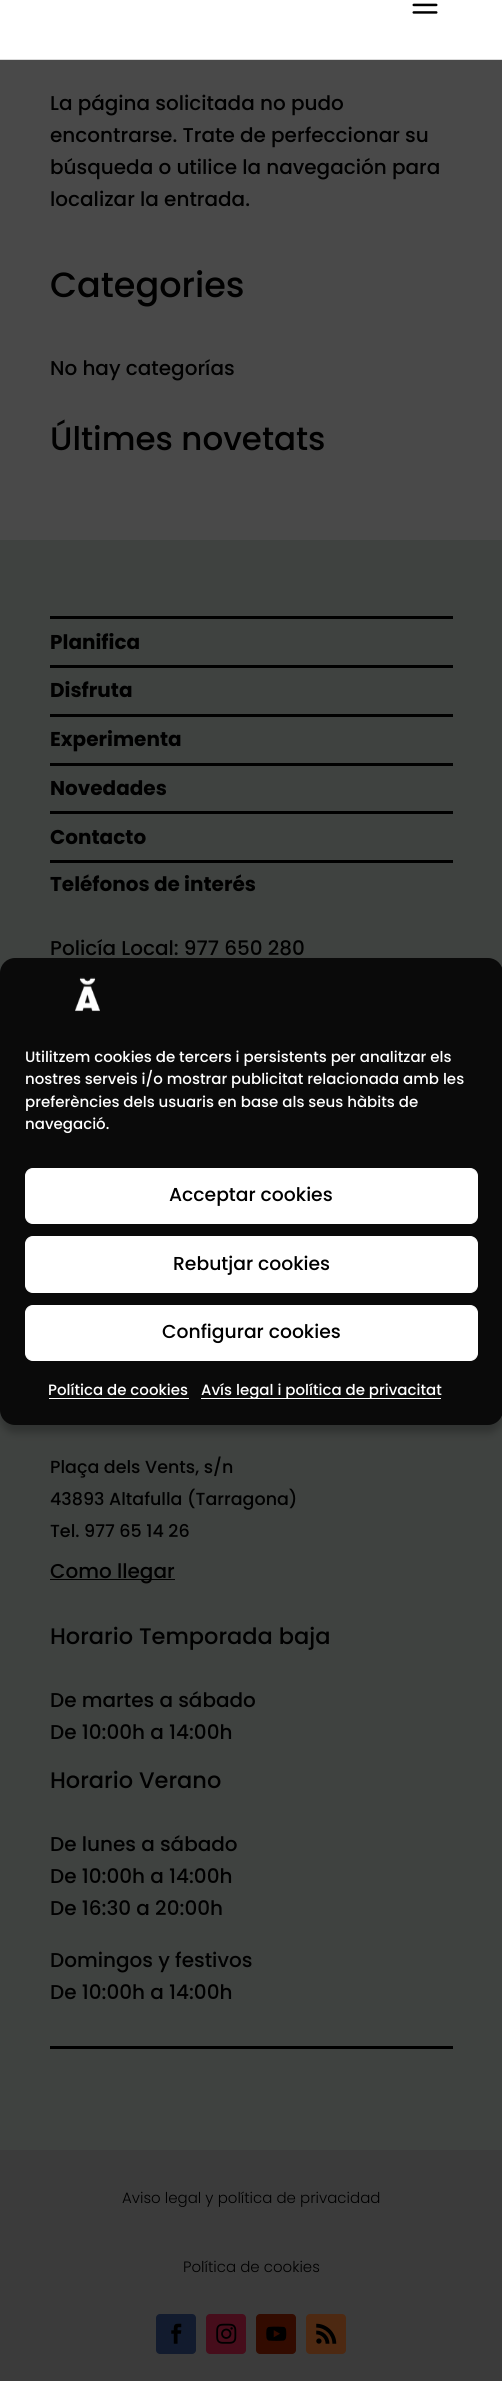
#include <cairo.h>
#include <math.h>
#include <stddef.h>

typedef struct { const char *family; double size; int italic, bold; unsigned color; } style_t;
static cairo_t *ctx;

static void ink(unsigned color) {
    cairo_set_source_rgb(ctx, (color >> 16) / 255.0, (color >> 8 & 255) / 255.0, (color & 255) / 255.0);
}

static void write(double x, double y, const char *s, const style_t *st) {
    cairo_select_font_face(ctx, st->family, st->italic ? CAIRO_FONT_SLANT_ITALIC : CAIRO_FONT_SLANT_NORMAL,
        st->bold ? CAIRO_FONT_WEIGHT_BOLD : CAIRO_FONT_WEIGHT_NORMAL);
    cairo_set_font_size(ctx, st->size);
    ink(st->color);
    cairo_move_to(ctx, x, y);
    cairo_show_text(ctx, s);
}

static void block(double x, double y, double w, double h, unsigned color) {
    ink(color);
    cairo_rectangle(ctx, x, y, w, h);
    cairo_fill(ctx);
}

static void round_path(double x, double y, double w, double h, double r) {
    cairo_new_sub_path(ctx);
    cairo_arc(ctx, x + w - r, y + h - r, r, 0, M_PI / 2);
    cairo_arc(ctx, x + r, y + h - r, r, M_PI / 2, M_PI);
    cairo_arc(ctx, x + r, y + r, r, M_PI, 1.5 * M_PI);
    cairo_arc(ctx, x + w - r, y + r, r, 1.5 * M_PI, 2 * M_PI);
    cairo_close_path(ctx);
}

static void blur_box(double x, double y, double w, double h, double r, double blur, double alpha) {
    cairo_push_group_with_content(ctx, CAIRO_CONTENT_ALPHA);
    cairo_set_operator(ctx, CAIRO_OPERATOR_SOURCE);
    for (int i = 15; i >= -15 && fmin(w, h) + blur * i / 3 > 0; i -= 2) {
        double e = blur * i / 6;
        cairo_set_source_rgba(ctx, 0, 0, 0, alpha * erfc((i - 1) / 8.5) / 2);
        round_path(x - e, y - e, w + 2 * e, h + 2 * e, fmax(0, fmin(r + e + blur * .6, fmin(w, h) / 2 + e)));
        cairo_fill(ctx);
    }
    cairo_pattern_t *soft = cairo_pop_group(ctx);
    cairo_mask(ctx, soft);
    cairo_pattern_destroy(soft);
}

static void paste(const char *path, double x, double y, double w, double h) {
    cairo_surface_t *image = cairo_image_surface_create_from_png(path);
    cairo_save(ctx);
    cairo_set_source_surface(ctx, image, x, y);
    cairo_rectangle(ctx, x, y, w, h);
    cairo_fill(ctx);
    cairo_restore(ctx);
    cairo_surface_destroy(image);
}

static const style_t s1 = {"Poppins Medium", 20, 0, 0, 0x000000};
static const style_t s2 = {"Poppins Medium", 35, 0, 0, 0x000000};
static const style_t s3 = {"Poppins Medium", 32.5, 0, 0, 0x000000};
static const style_t s4 = {"Poppins", 20, 0, 1, 0x000000};
static const style_t s5 = {"Poppins Medium", 17.5, 0, 0, 0x000000};
static const style_t s6 = {"Poppins Medium", 22.5, 0, 0, 0x000000};
static const style_t s7 = {"Poppins Light", 15, 0, 0, 0x000000};
static const style_t s8 = {"Poppins Medium", 15, 0, 0, 0xffffff};
static const style_t s9 = {"Poppins Medium", 18.75, 0, 0, 0x000000};

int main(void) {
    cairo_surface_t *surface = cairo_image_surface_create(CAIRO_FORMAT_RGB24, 502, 2381);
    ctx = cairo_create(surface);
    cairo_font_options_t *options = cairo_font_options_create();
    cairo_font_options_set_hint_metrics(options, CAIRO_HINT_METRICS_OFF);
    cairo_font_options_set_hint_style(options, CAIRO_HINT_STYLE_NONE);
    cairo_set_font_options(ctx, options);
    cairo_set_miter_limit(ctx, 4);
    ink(0x494949);
    cairo_paint(ctx);
    block(0, 0, 502, 59, 0xffffff);
    block(0, 59, 502, 1, 0xdbdbdb);
    paste("pic1.png", 412, 3, 26, 11);
    write(50, 110, "La página solicitada no pudo", &s1);
    write(50, 142, "encontrarse. Trate de perfeccionar su", &s1);
    write(50, 174, "búsqueda o utilice la navegación para", &s1);
    write(50, 206, "localizar la entrada.", &s1);
    write(50, 297, "Categories", &s2);
    write(50, 375, "No hay categorías", &s1);
    write(50, 450, "Últimes novetats", &s3);
    block(0, 540, 502, 1610, 0x3f4240);
    block(50, 616, 403, 3, 0x000000);
    write(50, 649, "Planifica", &s4);
    block(50, 665, 403, 3, 0x000000);
    write(50, 697, "Disfruta", &s4);
    block(50, 714, 403, 3, 0x000000);
    write(50, 746, "Experimenta", &s4);
    block(50, 763, 403, 3, 0x000000);
    write(50, 795, "Novedades", &s4);
    block(50, 811, 403, 3, 0x000000);
    write(50, 844, "Contacto", &s4);
    block(50, 860, 403, 3, 0x000000);
    write(50, 891, "Teléfonos de interés", &s4);
    write(50, 955, "Policía Local: 977 650 280", &s1);
    write(50, 1473, "Plaça dels Vents, s/n", &s5);
    write(50, 1505, "43893 Altafulla (Tarragona)", &s5);
    write(50, 1537, "Tel. 977 65 14 26", &s5);
    block(50, 1579, 125, 1, 0x000000);
    write(50, 1578, "Como llegar", &s1);
    write(50, 1644, "Horario Temporada baja", &s6);
    write(50, 1707, "De martes a sábado", &s1);
    write(50, 1739, "De 10:00h a 14:00h", &s1);
    write(50, 1788, "Horario Verano", &s6);
    write(50, 1851, "De lunes a sábado", &s1);
    write(50, 1883, "De 10:00h a 14:00h", &s1);
    write(50, 1915, "De 16:30 a 20:00h", &s1);
    write(50, 1967, "Domingos y festivos", &s1);
    write(50, 1999, "De 10:00h a 14:00h", &s1);
    block(50, 2046, 403, 3, 0x000000);
    block(0, 2150, 502, 231, 0x3b3b3b);
    write(122, 2203, "Aviso legal y política de privacidad", &s7);
    write(183, 2272, "Política de cookies", &s7);
    ink(0x121b2e);
    round_path(156, 2314, 40, 40, 4);
    cairo_fill(ctx);
    paste("pic2.png", 171, 2323, 11, 21);
    ink(0x460d1b);
    round_path(206, 2314, 40, 40, 4);
    cairo_fill(ctx);
    paste("pic3.png", 216, 2323, 21, 21);
    ink(0x320b00);
    round_path(256, 2314, 40, 40, 4);
    cairo_fill(ctx);
    paste("pic4.png", 266, 2326, 21, 15);
    ink(0x4d2912);
    round_path(306, 2314, 40, 40, 4);
    cairo_fill(ctx);
    paste("pic5.png", 316, 2323, 21, 21);
    ink(0x000000);
    blur_box(0, 965, 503, 468, 15, 4, 0.23);
    ink(0x0a0a0a);
    round_path(0, 958, 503, 467, 15);
    cairo_fill(ctx);
    paste("pic6.png", 75, 977, 25, 35);
    write(25, 1062, "Utilitzem cookies de tercers i persistents per analitzar els", &s8);
    write(25, 1084, "nostres serveis i/o mostrar publicitat relacionada amb les", &s8);
    write(25, 1107, "preferències dels usuaris en base als seus hàbits de", &s8);
    write(25, 1129, "navegació.", &s8);
    round_path(25.5, 1168.5, 452, 55, 7.5);
    cairo_fill_preserve(ctx);
    cairo_set_line_width(ctx, 1);
    cairo_stroke(ctx);
    write(169, 1201, "Acceptar cookies", &s9);
    ink(0xffffff);
    round_path(25.5, 1236.5, 452, 56, 7.5);
    cairo_fill_preserve(ctx);
    cairo_stroke(ctx);
    write(173, 1270, "Rebutjar cookies", &s9);
    ink(0xffffff);
    round_path(25.5, 1305.5, 452, 55, 7.5);
    cairo_fill_preserve(ctx);
    cairo_stroke(ctx);
    write(162, 1338, "Configurar cookies", &s9);
    write(48, 1395, "Política de cookies", &s8);
    block(49, 1398, 140, 1, 0xffffff);
    block(201, 1398, 240, 1, 0xffffff);
    write(201, 1395, "Avís legal i política de privacitat", &s8);
    cairo_surface_write_to_png(surface, "screenshot.png");
    cairo_font_options_destroy(options);
    cairo_destroy(ctx);
    cairo_surface_destroy(surface);
    return 0;
}
